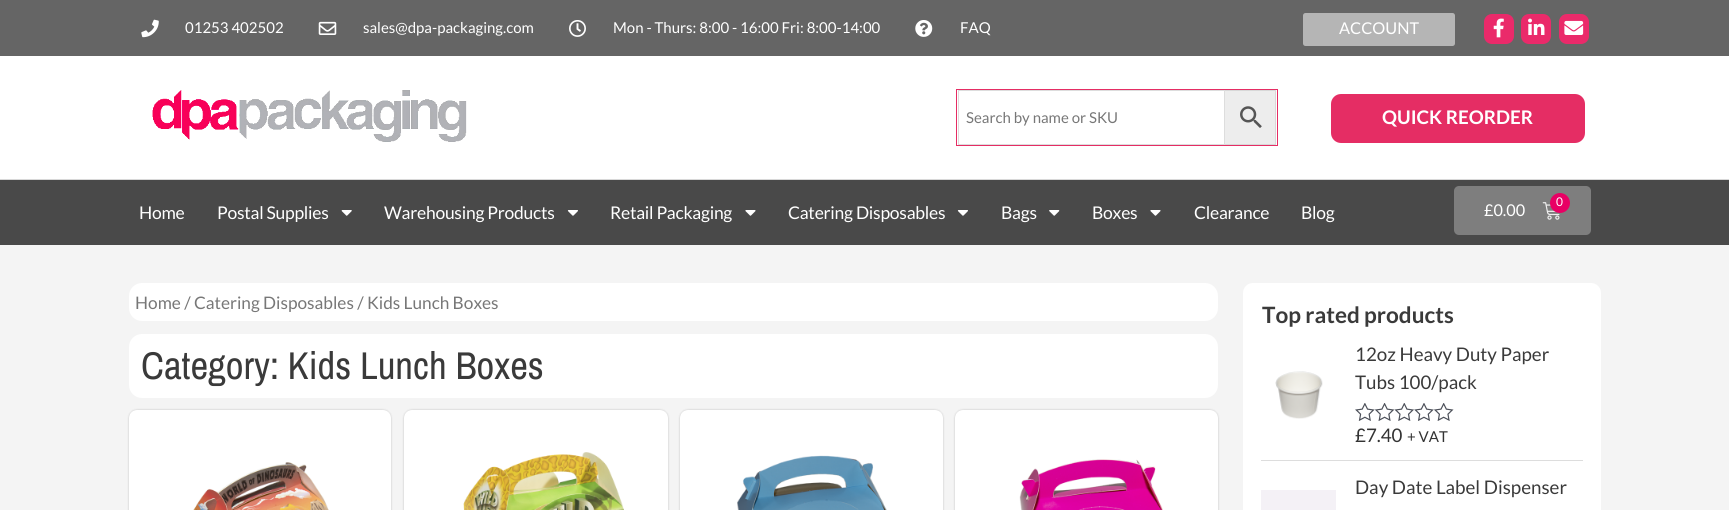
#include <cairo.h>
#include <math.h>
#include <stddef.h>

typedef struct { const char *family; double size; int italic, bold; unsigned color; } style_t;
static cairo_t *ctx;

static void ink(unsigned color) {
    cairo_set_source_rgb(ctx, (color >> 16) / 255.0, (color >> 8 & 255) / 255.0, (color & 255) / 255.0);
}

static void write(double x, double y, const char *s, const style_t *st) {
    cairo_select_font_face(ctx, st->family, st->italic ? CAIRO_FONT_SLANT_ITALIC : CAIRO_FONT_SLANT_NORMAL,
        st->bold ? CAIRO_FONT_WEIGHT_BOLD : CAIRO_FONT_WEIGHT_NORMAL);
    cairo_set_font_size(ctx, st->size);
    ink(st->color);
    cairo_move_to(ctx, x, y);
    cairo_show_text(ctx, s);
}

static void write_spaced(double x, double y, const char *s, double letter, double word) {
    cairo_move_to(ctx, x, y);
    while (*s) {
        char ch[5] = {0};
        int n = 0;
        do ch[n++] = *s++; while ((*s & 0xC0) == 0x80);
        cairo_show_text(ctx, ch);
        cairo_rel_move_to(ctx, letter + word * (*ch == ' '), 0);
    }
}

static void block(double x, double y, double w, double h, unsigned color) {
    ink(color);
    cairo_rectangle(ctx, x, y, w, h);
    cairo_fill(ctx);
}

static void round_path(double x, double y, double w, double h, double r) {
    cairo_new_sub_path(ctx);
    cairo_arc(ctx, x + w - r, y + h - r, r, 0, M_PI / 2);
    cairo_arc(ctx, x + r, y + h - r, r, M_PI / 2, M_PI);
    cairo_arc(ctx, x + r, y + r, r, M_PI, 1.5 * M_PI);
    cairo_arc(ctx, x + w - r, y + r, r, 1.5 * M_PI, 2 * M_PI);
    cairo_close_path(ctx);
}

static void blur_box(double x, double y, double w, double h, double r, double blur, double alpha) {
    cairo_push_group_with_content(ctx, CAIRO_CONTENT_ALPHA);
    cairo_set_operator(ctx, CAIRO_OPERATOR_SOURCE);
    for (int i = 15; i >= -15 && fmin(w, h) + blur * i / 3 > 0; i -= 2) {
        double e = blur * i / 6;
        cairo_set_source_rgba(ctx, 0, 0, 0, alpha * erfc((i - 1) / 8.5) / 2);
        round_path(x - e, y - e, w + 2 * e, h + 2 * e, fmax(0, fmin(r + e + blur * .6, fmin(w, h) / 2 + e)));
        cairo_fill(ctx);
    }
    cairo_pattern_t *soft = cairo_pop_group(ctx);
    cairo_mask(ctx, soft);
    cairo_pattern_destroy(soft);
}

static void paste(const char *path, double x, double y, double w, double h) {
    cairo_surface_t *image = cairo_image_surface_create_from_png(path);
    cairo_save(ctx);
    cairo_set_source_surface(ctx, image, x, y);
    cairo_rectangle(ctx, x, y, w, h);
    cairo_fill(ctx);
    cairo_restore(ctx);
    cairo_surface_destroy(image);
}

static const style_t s1 = {"Lato", 15, 0, 0, 0xffffff};
static const style_t s2 = {"Lato", 16.25, 0, 0, 0xffffff};
static const style_t s3 = {"Lato", 15, 0, 0, 0x777777};
static const style_t s4 = {"Lato", 18.75, 0, 1, 0xffffff};
static const style_t s5 = {"Lato", 12, 0, 0, 0xffffff};
static const style_t s6 = {"Lato", 17.25, 0, 0, 0x777777};
static const style_t s7 = {"Archivo Narrow", 38.75, 0, 0, 0x3a3a3a};
static const style_t s8 = {"Lato", 22.5, 0, 1, 0x3a3a3a};
static const style_t s9 = {"Lato", 18.75, 0, 0, 0x3a3a3a};
static const style_t s10 = {"Lato", 18.75, 0, 0, 0x333333};
static const style_t s11 = {"Lato", 15, 0, 0, 0x333333};

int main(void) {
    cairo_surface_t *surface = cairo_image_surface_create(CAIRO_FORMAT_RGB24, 1729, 510);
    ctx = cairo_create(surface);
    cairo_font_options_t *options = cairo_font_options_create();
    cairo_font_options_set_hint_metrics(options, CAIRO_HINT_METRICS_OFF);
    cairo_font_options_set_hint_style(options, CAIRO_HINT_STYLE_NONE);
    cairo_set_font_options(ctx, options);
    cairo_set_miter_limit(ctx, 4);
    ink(0x656565);
    cairo_paint(ctx);
    paste("pic1.png", 141, 19, 18, 19);
    write(185, 33, "01253 402502", &s1);
    paste("pic2.png", 318, 21, 19, 14);
    write(363, 33, "sales@dpa-packaging.com", &s1);
    paste("pic3.png", 569, 20, 17, 17);
    write(613, 33, "Mon - Thurs: 8:00 - 16:00 Fri: 8:00-14:00", &s1);
    paste("pic4.png", 915, 20, 18, 17);
    write(960, 33, "FAQ", &s1);
    ink(0xb5b5b5);
    round_path(1303, 13, 152, 33, 2.5);
    cairo_fill(ctx);
    write(1339, 34, "ACCOUNT", &s2);
    ink(0xea2a6a);
    round_path(1484, 14, 30, 30, 8);
    cairo_fill(ctx);
    paste("pic5.png", 1493, 18, 11, 20);
    round_path(1521, 14, 30, 30, 8);
    cairo_fill(ctx);
    paste("pic6.png", 1528, 18, 17, 17);
    round_path(1559, 14, 30, 30, 8);
    cairo_fill(ctx);
    paste("pic7.png", 1564, 20, 20, 15);
    block(0, 56, 1729, 123, 0xffffff);
    block(0, 179, 1729, 1, 0xd8d8d8);
    paste("pic8.png", 152, 90, 315, 52);
    cairo_rectangle(ctx, 956.5, 89.5, 321, 56);
    ink(0xe52d64);
    cairo_set_line_width(ctx, 1);
    cairo_stroke(ctx);
    ink(0xededed);
    cairo_rectangle(ctx, 1224.5, 90.5, 51, 54);
    cairo_fill_preserve(ctx);
    ink(0xd8d8d8);
    cairo_stroke(ctx);
    cairo_rectangle(ctx, 958.5, 90.5, 266, 54);
    ink(0xdddddd);
    cairo_stroke(ctx);
    write(966, 123, "Search by name or SKU", &s3);
    paste("pic9.png", 1240, 106, 22, 22);
    ink(0xe52d64);
    round_path(1331, 94, 254, 49, 10);
    cairo_fill(ctx);
    write(1382, 124, "QUICK REORDER", &s4);
    block(0, 180, 1729, 65, 0x494949);
    cairo_select_font_face(ctx, "Lato", CAIRO_FONT_SLANT_NORMAL, CAIRO_FONT_WEIGHT_NORMAL);
    cairo_set_font_size(ctx, 17.5);
    ink(0xffffff);
    write_spaced(139, 219, "Home", -0.25, 0);
    write_spaced(217, 219, "Postal Supplies", -0.25, 0);
    paste("pic10.png", 341, 210, 11, 6);
    write_spaced(384, 219, "Warehousing Products", -0.25, 0);
    paste("pic11.png", 567, 210, 11, 6);
    write_spaced(610, 219, "Retail Packaging", -0.25, 0);
    paste("pic12.png", 745, 210, 11, 6);
    write_spaced(788, 219, "Catering Disposables", -0.25, 0);
    paste("pic11.png", 957, 210, 11, 6);
    write_spaced(1001, 219, "Bags", -0.25, 0);
    paste("pic13.png", 1049, 210, 11, 6);
    write_spaced(1092, 219, "Boxes", -0.25, 0);
    paste("pic12.png", 1150, 210, 11, 6);
    write_spaced(1194, 219, "Clearance", -0.25, 0);
    write_spaced(1301, 219, "Blog", -0.25, 0);
    ink(0x7e7e7e);
    round_path(1454, 186, 137, 49, 5);
    cairo_fill(ctx);
    paste("pic14.png", 1542, 202, 18, 18);
    ink(0xe80064);
    cairo_arc(ctx, 1560, 203, 10, 0, 2 * M_PI);
    cairo_fill(ctx);
    write(1556, 206, "0", &s5);
    write(1484, 216, "£0.00", &s2);
    block(0, 245, 1729, 265, 0xf4f4f4);
    ink(0xffffff);
    round_path(129, 283, 1089, 38, 13);
    cairo_fill(ctx);
    write(135, 309, "Home / Catering Disposables / Kids Lunch Boxes", &s6);
    ink(0xffffff);
    round_path(129, 334, 1089, 64, 13);
    cairo_fill(ctx);
    write(141, 379, "Category: Kids Lunch Boxes", &s7);
    ink(0x000000);
    blur_box(129, 410, 262, 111, 8, 1, 0.22);
    ink(0xffffff);
    round_path(129, 410, 262, 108, 8);
    cairo_fill(ctx);
    paste("pic15.png", 193, 462, 136, 48);
    ink(0x000000);
    blur_box(404, 410, 264, 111, 8, 1, 0.22);
    ink(0xffffff);
    round_path(404, 410, 264, 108, 8);
    cairo_fill(ctx);
    paste("pic16.png", 463, 452, 161, 58);
    ink(0x000000);
    blur_box(680, 410, 263, 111, 8, 1, 0.22);
    ink(0xffffff);
    round_path(680, 410, 263, 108, 8);
    cairo_fill(ctx);
    paste("pic17.png", 737, 455, 150, 55);
    ink(0x000000);
    blur_box(955, 410, 263, 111, 8, 1, 0.22);
    ink(0xffffff);
    round_path(955, 410, 263, 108, 8);
    cairo_fill(ctx);
    paste("pic18.png", 1019, 459, 144, 51);
    round_path(1243, 283, 358, 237, 10);
    cairo_fill(ctx);
    write(1262, 323, "Top rated products", &s8);
    block(1261, 460, 322, 1, 0xdddddd);
    write(1355, 361, "12oz Heavy Duty Paper", &s9);
    paste("pic19.png", 1275, 371, 48, 48);
    write(1355, 389, "Tubs 100/pack", &s9);
    paste("pic20.png", 1355, 403, 99, 18);
    write(1355, 442, "£7.40", &s10);
    write(1407, 442, "+ VAT", &s11);
    block(1261, 490, 75, 20, 0xf4f1f6);
    write(1355, 494, "Day Date Label Dispenser", &s9);
    cairo_surface_write_to_png(surface, "screenshot.png");
    cairo_font_options_destroy(options);
    cairo_destroy(ctx);
    cairo_surface_destroy(surface);
    return 0;
}
